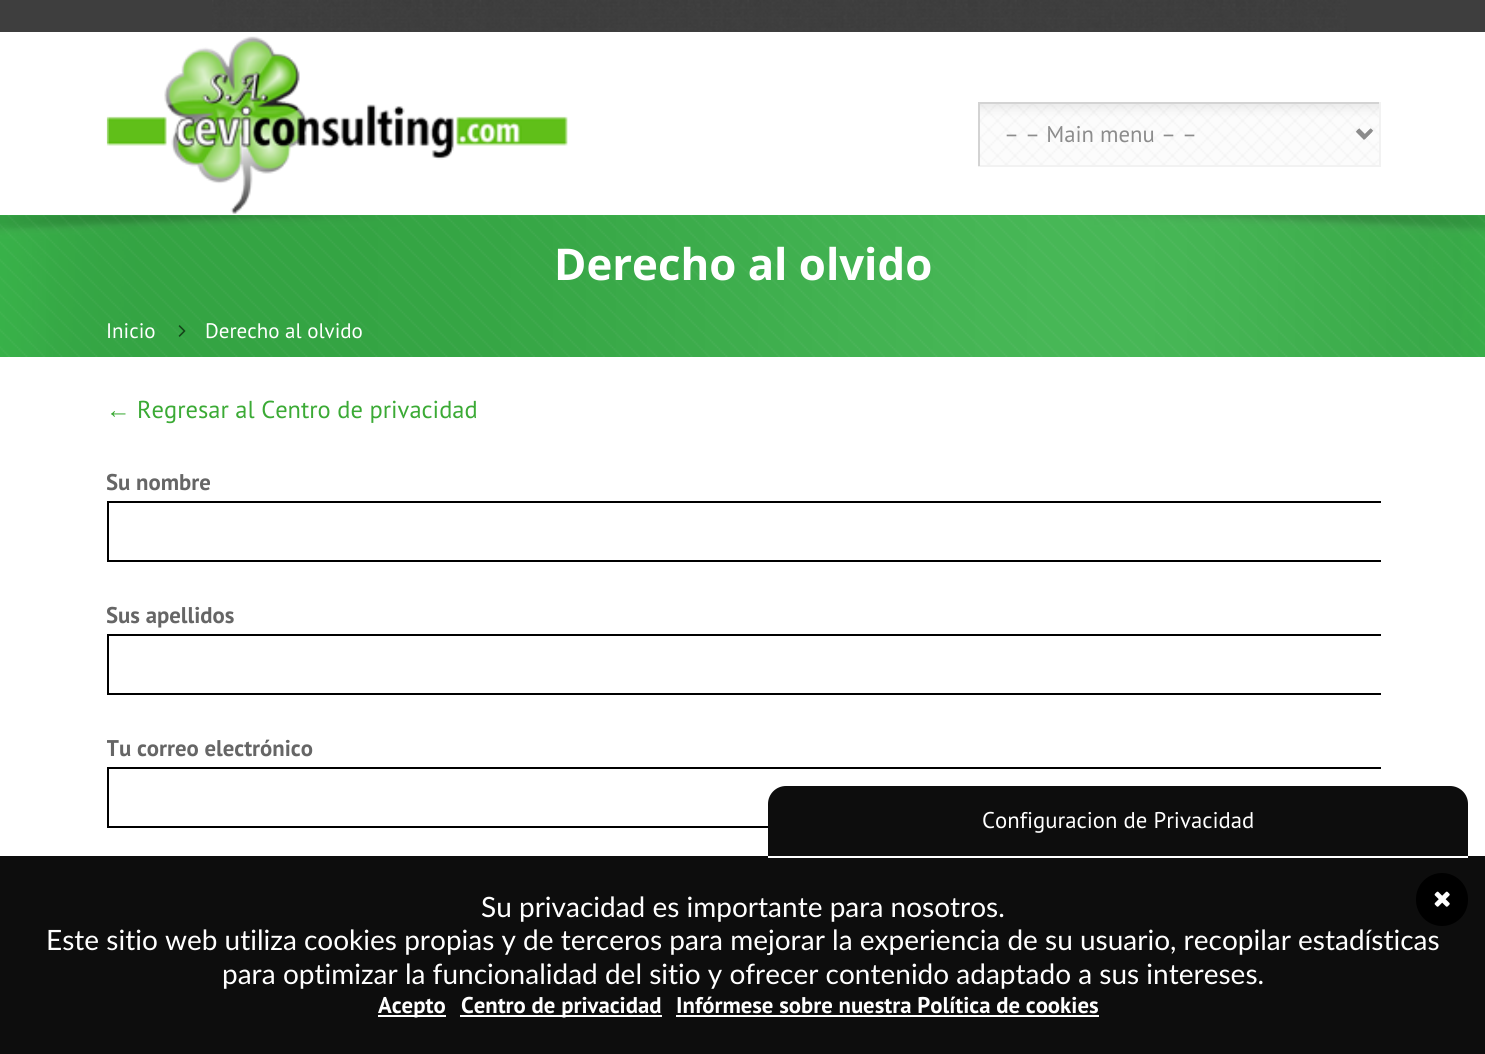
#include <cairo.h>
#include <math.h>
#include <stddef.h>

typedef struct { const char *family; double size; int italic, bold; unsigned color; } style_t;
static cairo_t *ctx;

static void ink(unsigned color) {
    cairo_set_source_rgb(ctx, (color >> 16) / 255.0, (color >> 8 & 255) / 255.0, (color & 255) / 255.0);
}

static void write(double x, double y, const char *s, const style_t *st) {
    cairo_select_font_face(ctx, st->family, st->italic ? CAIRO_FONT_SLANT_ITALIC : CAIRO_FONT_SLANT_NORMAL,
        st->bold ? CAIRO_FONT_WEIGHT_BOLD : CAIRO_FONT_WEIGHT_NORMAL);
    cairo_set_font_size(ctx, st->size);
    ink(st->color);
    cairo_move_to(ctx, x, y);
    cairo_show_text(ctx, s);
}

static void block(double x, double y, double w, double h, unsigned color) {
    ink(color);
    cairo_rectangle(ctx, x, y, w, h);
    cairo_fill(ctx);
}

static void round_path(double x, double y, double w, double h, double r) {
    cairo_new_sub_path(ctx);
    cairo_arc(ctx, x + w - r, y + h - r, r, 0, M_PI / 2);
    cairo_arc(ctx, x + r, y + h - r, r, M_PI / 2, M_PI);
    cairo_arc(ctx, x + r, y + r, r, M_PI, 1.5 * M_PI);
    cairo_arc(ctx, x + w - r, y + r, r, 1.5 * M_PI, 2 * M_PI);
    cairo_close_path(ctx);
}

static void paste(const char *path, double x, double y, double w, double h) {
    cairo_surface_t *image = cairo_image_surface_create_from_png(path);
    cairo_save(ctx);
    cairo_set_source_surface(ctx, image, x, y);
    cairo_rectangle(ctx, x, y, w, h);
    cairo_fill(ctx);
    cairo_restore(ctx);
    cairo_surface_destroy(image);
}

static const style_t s1 = {"PT Sans", 22.75, 0, 0, 0x8c8c8c};
static const style_t s2 = {"Open Sans", 43.75, 0, 1, 0xffffff};
static const style_t s3 = {"PT Sans", 21, 0, 0, 0xffffff};
static const style_t s4 = {"Liberation Sans", 24.5, 0, 0, 0x3baa35};
static const style_t s5 = {"PT Sans", 24.5, 0, 0, 0x3baa35};
static const style_t s6 = {"PT Sans", 22.75, 0, 1, 0x666666};
static const style_t s7 = {"PT Sans", 22.75, 0, 0, 0xffffff};
static const style_t s8 = {"Lato", 28, 0, 0, 0xffffff};
static const style_t s9 = {"PT Sans", 22.75, 0, 1, 0xffffff};

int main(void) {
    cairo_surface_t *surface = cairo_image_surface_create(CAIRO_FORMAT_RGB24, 1485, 1054);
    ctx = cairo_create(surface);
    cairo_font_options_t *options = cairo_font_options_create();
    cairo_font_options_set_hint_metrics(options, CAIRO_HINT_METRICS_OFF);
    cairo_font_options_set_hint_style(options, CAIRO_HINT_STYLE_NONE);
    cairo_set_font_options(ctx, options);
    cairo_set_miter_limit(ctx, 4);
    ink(0xffffff);
    cairo_paint(ctx);
    block(0, 0, 1485, 32, 0x3e3e3e);
    paste("pic1.png", 212, 0, 1135, 31);
    paste("pic2.png", 106, 36, 462, 178);
    block(980, 104, 399, 61, 0xfcfcfc);
    paste("pic3.png", 980, 104, 399, 61);
    block(978, 102, 403, 2, 0xd3d3d3);
    block(1379, 102, 2, 64, 0xf2f2f2);
    block(978, 165, 403, 2, 0xf2f2f2);
    block(978, 102, 2, 64, 0xd3d3d3);
    cairo_new_path(ctx);
    cairo_move_to(ctx, 1357, 130.5);
    cairo_line_to(ctx, 1364, 137.5);
    cairo_line_to(ctx, 1371, 130.5);
    ink(0x8c8c8c);
    cairo_set_line_width(ctx, 3.5);
    cairo_stroke(ctx);
    write(1004, 142, "– – Main menu – –", &s1);
    block(0, 215, 1485, 142, 0x39b54a);
    paste("pic4.png", 0, 215, 1485, 142);
    write(554, 280, "Derecho al olvido", &s2);
    write(106, 338, "Inicio", &s3);
    paste("pic5.png", 178, 325, 8, 12);
    write(205, 338, "Derecho al olvido", &s3);
    write(106, 418, "←", &s4);
    write(137, 418, "Regresar al Centro de privacidad", &s5);
    cairo_save(ctx);
    cairo_rectangle(ctx, 107, 392, 1274, 630);
    cairo_clip(ctx);
    write(106, 490, "Su nombre", &s6);
    cairo_rectangle(ctx, 108, 502, 1310, 59);
    ink(0x000000);
    cairo_set_line_width(ctx, 2);
    cairo_stroke(ctx);
    write(106, 623, "Sus apellidos", &s6);
    cairo_rectangle(ctx, 108, 635, 1310, 59);
    ink(0x000000);
    cairo_stroke(ctx);
    write(106, 756, "Tu correo electrónico", &s6);
    cairo_rectangle(ctx, 108, 768, 1310, 59);
    ink(0x000000);
    cairo_stroke(ctx);
    cairo_restore(ctx);
    block(0, 856, 1485, 198, 0x0d0d0d);
    cairo_new_path(ctx);
    cairo_move_to(ctx, 786, 786);
    cairo_line_to(ctx, 1450, 786);
    cairo_curve_to(ctx, 1460, 786, 1468, 794, 1468, 804);
    cairo_line_to(ctx, 1468, 858);
    cairo_line_to(ctx, 768, 858);
    cairo_line_to(ctx, 768, 804);
    cairo_curve_to(ctx, 768, 794, 776, 786, 786, 786);
    cairo_close_path(ctx);
    cairo_fill(ctx);
    block(768, 856, 700, 2, 0xffffff);
    write(982, 828, "Configuracion de Privacidad", &s7);
    write(481, 917, "Su privacidad es importante para nosotros.", &s8);
    write(46, 950, "Este sitio web utiliza cookies propias y de terceros para mejorar la experiencia de su usuario, recopilar estadísticas", &s8);
    write(222, 984, "para optimizar la funcionalidad del sitio y ofrecer contenido adaptado a sus intereses.", &s8);
    ink(0x000000);
    round_path(1416, 873, 52, 53, 26);
    cairo_fill(ctx);
    paste("pic6.png", 1434, 891, 16, 16);
    block(378, 1015, 68, 2, 0xffffff);
    write(378, 1013, "Acepto", &s9);
    block(460, 1015, 202, 2, 0xffffff);
    write(461, 1013, "Centro de privacidad", &s9);
    write(676, 1013, "Infórmese sobre nuestra Política de cookies", &s9);
    block(676, 1015, 423, 2, 0xffffff);
    cairo_surface_write_to_png(surface, "screenshot.png");
    cairo_font_options_destroy(options);
    cairo_destroy(ctx);
    cairo_surface_destroy(surface);
    return 0;
}
